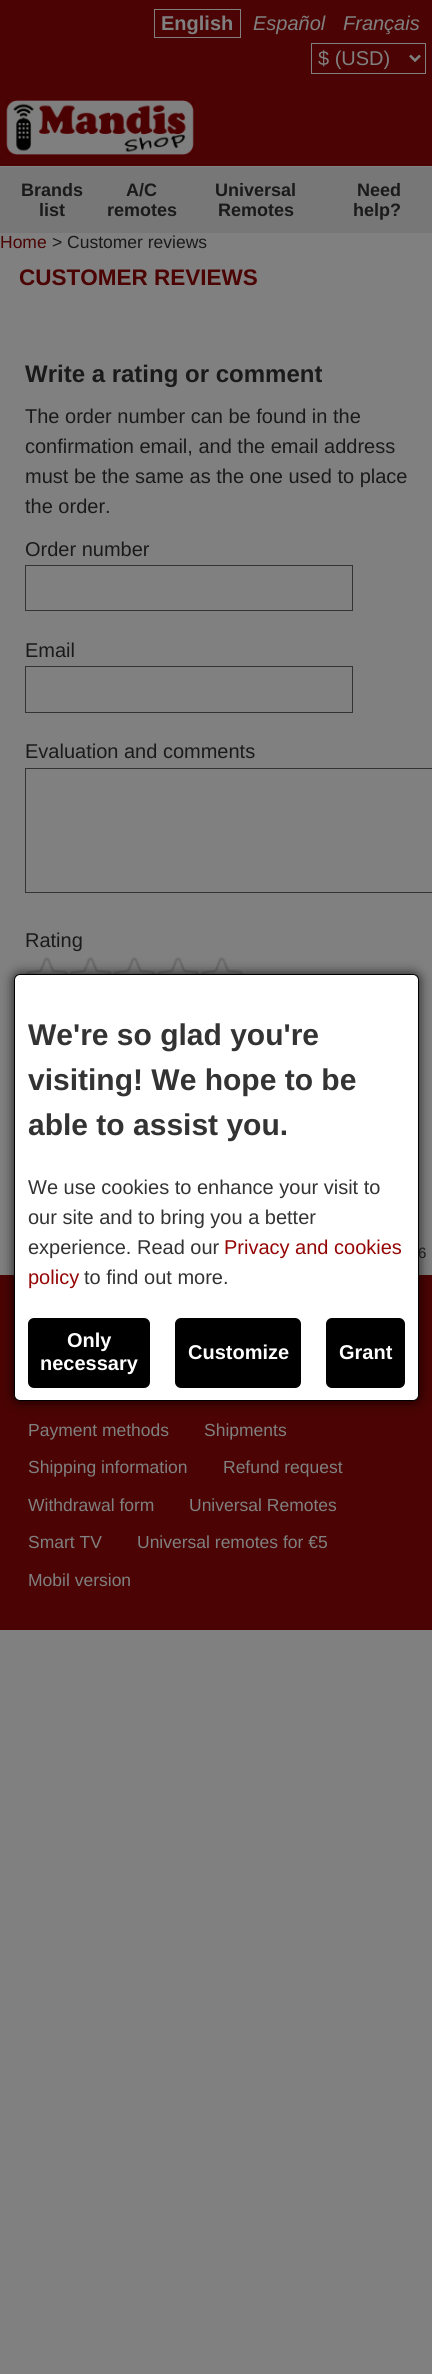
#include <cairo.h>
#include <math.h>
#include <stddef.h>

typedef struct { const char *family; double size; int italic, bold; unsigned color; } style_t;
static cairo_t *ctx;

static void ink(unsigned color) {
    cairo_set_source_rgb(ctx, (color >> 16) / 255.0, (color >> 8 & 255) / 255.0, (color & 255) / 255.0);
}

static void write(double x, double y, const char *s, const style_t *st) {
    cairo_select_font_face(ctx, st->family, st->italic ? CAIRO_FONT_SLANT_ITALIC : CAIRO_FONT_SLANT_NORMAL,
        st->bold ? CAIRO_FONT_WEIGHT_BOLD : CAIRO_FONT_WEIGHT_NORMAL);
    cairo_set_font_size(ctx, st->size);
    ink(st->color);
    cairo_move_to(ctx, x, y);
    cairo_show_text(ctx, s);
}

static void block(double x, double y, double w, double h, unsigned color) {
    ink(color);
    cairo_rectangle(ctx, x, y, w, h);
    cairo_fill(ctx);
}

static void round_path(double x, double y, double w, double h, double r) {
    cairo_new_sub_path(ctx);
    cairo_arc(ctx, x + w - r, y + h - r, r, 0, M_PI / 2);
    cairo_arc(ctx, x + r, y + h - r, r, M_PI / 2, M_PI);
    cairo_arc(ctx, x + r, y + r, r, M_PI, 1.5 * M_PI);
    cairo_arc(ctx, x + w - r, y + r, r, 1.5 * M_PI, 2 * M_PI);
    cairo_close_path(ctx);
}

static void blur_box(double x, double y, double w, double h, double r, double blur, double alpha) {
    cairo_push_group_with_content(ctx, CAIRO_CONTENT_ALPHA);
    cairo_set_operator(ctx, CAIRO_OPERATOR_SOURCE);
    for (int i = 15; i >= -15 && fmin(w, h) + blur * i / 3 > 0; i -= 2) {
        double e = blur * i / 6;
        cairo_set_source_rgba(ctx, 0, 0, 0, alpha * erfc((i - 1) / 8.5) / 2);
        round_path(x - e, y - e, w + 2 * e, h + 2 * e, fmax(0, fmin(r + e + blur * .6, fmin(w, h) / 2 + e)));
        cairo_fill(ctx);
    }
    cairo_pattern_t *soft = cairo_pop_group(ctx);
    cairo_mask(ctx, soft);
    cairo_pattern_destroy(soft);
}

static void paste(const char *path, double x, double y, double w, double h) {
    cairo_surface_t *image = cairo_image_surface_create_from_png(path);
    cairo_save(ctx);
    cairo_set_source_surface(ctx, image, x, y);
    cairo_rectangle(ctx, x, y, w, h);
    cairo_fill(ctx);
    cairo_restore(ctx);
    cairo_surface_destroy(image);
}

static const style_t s1 = {"Liberation Sans", 20, 0, 1, 0x808080};
static const style_t s2 = {"Liberation Sans", 20, 1, 0, 0x808080};
static const style_t s3 = {"Liberation Sans", 20, 0, 0, 0x808080};
static const style_t s4 = {"Liberation Sans", 18, 0, 1, 0x1a1a1a};
static const style_t s5 = {"Liberation Sans", 17.5, 0, 0, 0x4b0303};
static const style_t s6 = {"Liberation Sans", 17.5, 0, 0, 0x1a1a1a};
static const style_t s7 = {"Liberation Sans", 22.5, 0, 1, 0x4b0303};
static const style_t s8 = {"Liberation Sans", 24, 0, 1, 0x1a1a1a};
static const style_t s9 = {"Liberation Sans", 20, 0, 0, 0x1a1a1a};
static const style_t s10 = {"Liberation Sans", 15, 0, 0, 0x1a1a1a};
static const style_t s11 = {"Liberation Sans", 30, 0, 1, 0x333333};
static const style_t s12 = {"Liberation Sans", 20, 0, 0, 0x333333};
static const style_t s13 = {"Liberation Sans", 20, 0, 0, 0x950505};
static const style_t s14 = {"Liberation Sans", 20, 0, 1, 0xffffff};
static const style_t s15 = {"Liberation Sans", 17.5, 0, 0, 0x808080};

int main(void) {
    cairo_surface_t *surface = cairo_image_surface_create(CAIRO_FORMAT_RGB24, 432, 2374);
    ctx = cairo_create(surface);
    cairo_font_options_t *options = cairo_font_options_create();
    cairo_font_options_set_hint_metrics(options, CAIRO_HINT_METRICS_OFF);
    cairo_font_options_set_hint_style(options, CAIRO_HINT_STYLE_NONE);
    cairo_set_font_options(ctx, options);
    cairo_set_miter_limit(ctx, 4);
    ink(0x808080);
    cairo_paint(ctx);
    block(0, 0, 432, 166, 0x4b0303);
    cairo_rectangle(ctx, 154.5, 9.5, 86, 28);
    ink(0x808080);
    cairo_set_line_width(ctx, 1);
    cairo_stroke(ctx);
    write(161, 30, "English", &s1);
    write(253, 30, "Español", &s2);
    write(343, 30, "Français", &s2);
    cairo_rectangle(ctx, 311.5, 43.5, 114, 30);
    cairo_stroke(ctx);
    cairo_new_path(ctx);
    cairo_move_to(ctx, 410, 55.5);
    cairo_line_to(ctx, 415, 60.5);
    cairo_line_to(ctx, 420, 55.5);
    cairo_set_line_width(ctx, 2.5);
    cairo_stroke(ctx);
    write(318, 65, "$ (USD)", &s3);
    paste("pic1.png", 6, 100, 188, 55);
    block(0, 167, 432, 66, 0x777777);
    write(21, 196, "Brands", &s4);
    write(39, 216, "list", &s4);
    write(126, 196, "A/C", &s4);
    write(107, 216, "remotes", &s4);
    write(215, 196, "Universal", &s4);
    write(218, 216, "Remotes", &s4);
    write(357, 196, "Need", &s4);
    write(353, 216, "help?", &s4);
    write(0, 248, "Home", &s5);
    write(52, 248, "> Customer reviews", &s6);
    write(19, 285, "CUSTOMER REVIEWS", &s7);
    write(25, 382, "Write a rating or comment", &s8);
    write(25, 423, "The order number can be found in the", &s9);
    write(25, 453, "confirmation email, and the email address", &s9);
    write(25, 483, "must be the same as the one used to place", &s9);
    write(25, 513, "the order.", &s9);
    write(25, 556, "Order number", &s9);
    cairo_rectangle(ctx, 25.5, 565.5, 327, 45);
    ink(0x333333);
    cairo_set_line_width(ctx, 1);
    cairo_stroke(ctx);
    write(25, 657, "Email", &s9);
    cairo_rectangle(ctx, 25.5, 666.5, 327, 46);
    ink(0x333333);
    cairo_stroke(ctx);
    write(25, 758, "Evaluation and comments", &s9);
    cairo_rectangle(ctx, 25.5, 768.5, 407, 124);
    ink(0x333333);
    cairo_stroke(ctx);
    write(25, 947, "Rating", &s9);
    paste("pic2.png", 26, 957, 42, 17);
    paste("pic3.png", 70, 957, 42, 17);
    paste("pic4.png", 113, 957, 43, 17);
    paste("pic5.png", 157, 957, 42, 17);
    paste("pic6.png", 201, 957, 42, 17);
    block(0, 1275, 432, 355, 0x4b0303);
    ink(0x000000);
    blur_box(14, 974, 405, 427, 6, 6, 0.8);
    write(418, 1258, "6", &s10);
    ink(0xffffff);
    round_path(14.5, 974.5, 404, 426, 5.5);
    cairo_fill_preserve(ctx);
    ink(0x000000);
    cairo_stroke(ctx);
    write(28, 1045, "We're so glad you're", &s11);
    write(28, 1090, "visiting! We hope to be", &s11);
    write(28, 1135, "able to assist you.", &s11);
    write(28, 1194, "We use cookies to enhance your visit to", &s12);
    write(28, 1224, "our site and to bring you a better", &s12);
    write(28, 1254, "experience. Read our", &s12);
    write(224, 1254, "Privacy and cookies", &s13);
    write(28, 1284, "policy", &s13);
    write(84, 1284, "to find out more.", &s12);
    ink(0x000000);
    round_path(28, 1318, 122, 70, 6);
    cairo_fill(ctx);
    write(67, 1347, "Only", &s14);
    write(40, 1370, "necessary", &s14);
    ink(0x000000);
    round_path(175, 1318, 126, 70, 6);
    cairo_fill(ctx);
    write(188, 1359, "Customize", &s14);
    ink(0x000000);
    round_path(326, 1318, 79, 70, 6);
    cairo_fill(ctx);
    write(339, 1359, "Grant", &s14);
    write(28, 1436, "Payment methods", &s15);
    write(204, 1436, "Shipments", &s15);
    write(28, 1473, "Shipping information", &s15);
    write(223, 1473, "Refund request", &s15);
    write(28, 1511, "Withdrawal form", &s15);
    write(189, 1511, "Universal Remotes", &s15);
    write(28, 1548, "Smart TV", &s15);
    write(137, 1548, "Universal remotes for €5", &s15);
    write(28, 1586, "Mobil version", &s15);
    cairo_surface_write_to_png(surface, "screenshot.png");
    cairo_font_options_destroy(options);
    cairo_destroy(ctx);
    cairo_surface_destroy(surface);
    return 0;
}
